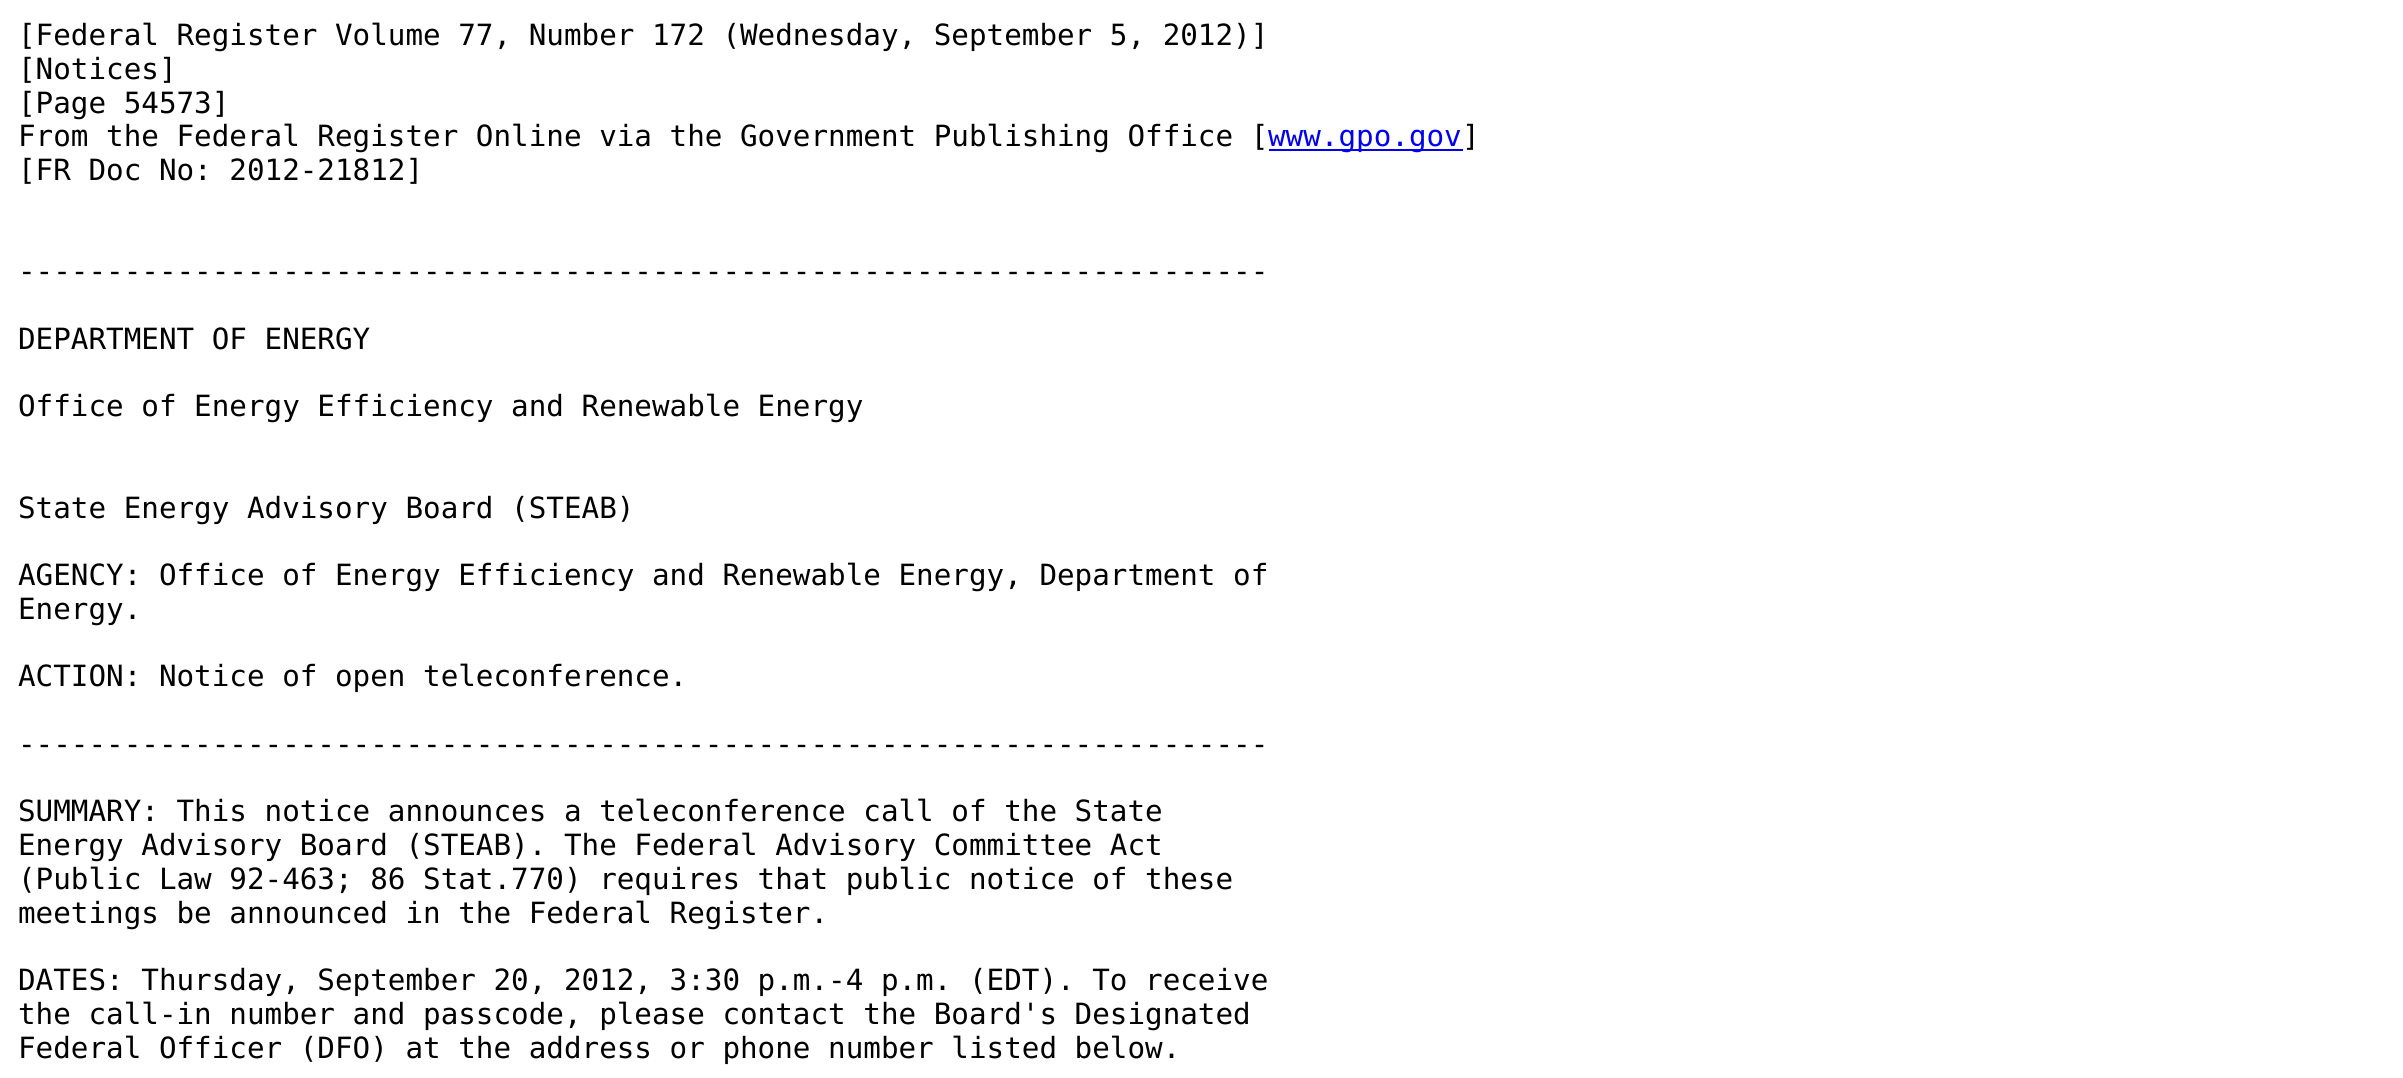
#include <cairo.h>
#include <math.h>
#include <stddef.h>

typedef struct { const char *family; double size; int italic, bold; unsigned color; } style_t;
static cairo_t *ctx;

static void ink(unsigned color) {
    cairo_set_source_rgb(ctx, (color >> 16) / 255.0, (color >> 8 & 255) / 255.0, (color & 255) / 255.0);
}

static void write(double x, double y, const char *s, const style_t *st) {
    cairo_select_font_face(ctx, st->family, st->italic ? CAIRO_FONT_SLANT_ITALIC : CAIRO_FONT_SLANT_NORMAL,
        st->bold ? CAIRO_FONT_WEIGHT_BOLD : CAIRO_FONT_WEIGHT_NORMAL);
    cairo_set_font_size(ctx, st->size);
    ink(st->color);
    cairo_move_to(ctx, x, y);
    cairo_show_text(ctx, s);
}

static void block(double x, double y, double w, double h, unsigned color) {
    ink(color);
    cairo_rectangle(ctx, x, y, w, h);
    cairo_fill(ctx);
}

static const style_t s1 = {"DejaVu Sans Mono", 29.25, 0, 0, 0x000000};
static const style_t s2 = {"DejaVu Sans Mono", 29.25, 0, 0, 0x0000ee};

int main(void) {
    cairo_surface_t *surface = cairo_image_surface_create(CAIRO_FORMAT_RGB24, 2403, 1078);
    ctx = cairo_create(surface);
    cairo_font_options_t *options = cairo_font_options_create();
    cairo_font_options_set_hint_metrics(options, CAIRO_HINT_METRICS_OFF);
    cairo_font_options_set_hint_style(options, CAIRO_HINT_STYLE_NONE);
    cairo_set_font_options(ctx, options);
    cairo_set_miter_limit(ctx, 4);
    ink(0xffffff);
    cairo_paint(ctx);
    write(18, 45, "[Federal Register Volume 77, Number 172 (Wednesday, September 5, 2012)]", &s1);
    write(18, 79, "[Notices]", &s1);
    write(18, 113, "[Page 54573]", &s1);
    write(18, 146, "From the Federal Register Online via the Government Publishing Office [", &s1);
    block(1269, 149, 194, 2, 0x0000ee);
    write(1268, 146, "www.gpo.gov", &s2);
    write(1462, 146, "]", &s1);
    write(18, 180, "[FR Doc No: 2012-21812]", &s1);
    write(18, 281, "-----------------------------------------------------------------------", &s1);
    write(18, 349, "DEPARTMENT OF ENERGY", &s1);
    write(18, 416, "Office of Energy Efficiency and Renewable Energy", &s1);
    write(18, 518, "State Energy Advisory Board (STEAB)", &s1);
    write(18, 585, "AGENCY: Office of Energy Efficiency and Renewable Energy, Department of", &s1);
    write(18, 619, "Energy.", &s1);
    write(18, 686, "ACTION: Notice of open teleconference.", &s1);
    write(18, 754, "-----------------------------------------------------------------------", &s1);
    write(18, 821, "SUMMARY: This notice announces a teleconference call of the State", &s1);
    write(18, 855, "Energy Advisory Board (STEAB). The Federal Advisory Committee Act", &s1);
    write(18, 889, "(Public Law 92-463; 86 Stat.770) requires that public notice of these", &s1);
    write(18, 923, "meetings be announced in the Federal Register.", &s1);
    write(18, 990, "DATES: Thursday, September 20, 2012, 3:30 p.m.-4 p.m. (EDT). To receive", &s1);
    write(18, 1024, "the call-in number and passcode, please contact the Board's Designated", &s1);
    write(18, 1058, "Federal Officer (DFO) at the address or phone number listed below.", &s1);
    cairo_surface_write_to_png(surface, "screenshot.png");
    cairo_font_options_destroy(options);
    cairo_destroy(ctx);
    cairo_surface_destroy(surface);
    return 0;
}
